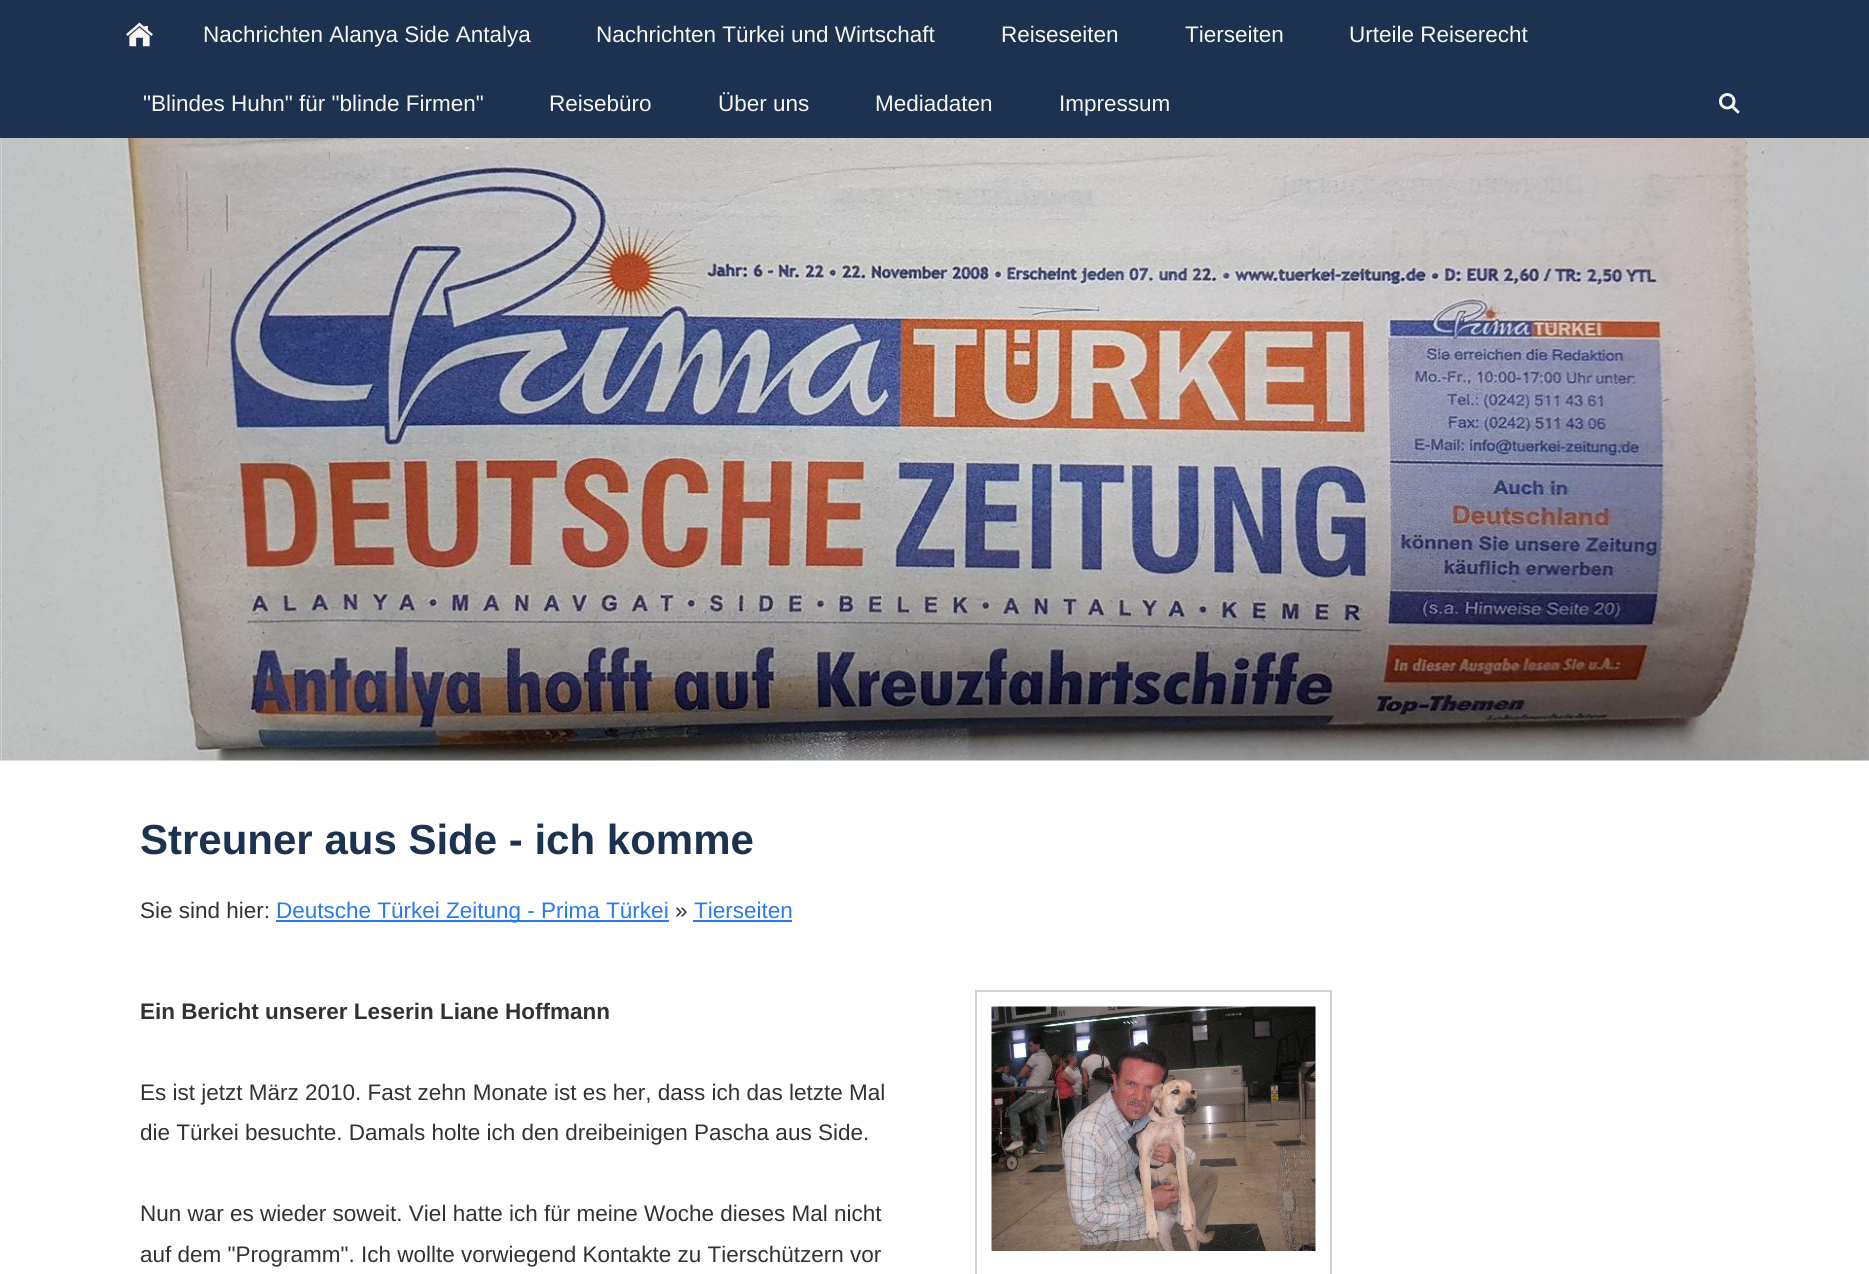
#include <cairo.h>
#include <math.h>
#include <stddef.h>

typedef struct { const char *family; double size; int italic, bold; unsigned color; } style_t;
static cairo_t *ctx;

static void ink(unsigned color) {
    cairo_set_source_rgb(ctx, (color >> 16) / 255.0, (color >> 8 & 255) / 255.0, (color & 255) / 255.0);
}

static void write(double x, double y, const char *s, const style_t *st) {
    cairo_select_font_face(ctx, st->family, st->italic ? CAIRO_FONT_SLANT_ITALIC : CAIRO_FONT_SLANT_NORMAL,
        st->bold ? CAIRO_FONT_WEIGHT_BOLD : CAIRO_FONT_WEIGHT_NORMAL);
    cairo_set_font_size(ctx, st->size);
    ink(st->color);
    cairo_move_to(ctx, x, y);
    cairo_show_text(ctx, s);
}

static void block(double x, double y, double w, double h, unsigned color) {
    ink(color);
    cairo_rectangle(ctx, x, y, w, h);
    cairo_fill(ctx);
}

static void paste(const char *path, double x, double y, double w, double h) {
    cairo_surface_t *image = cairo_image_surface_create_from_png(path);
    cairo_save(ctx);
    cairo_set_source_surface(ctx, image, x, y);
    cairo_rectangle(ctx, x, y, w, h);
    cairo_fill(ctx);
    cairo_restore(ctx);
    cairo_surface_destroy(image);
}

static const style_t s1 = {"Liberation Sans", 22.5, 0, 0, 0xf7f6f2};
static const style_t s2 = {"Liberation Sans", 42, 0, 1, 0x1d3250};
static const style_t s3 = {"Liberation Sans", 22.5, 0, 0, 0x323232};
static const style_t s4 = {"Liberation Sans", 22.5, 0, 0, 0x287aed};
static const style_t s5 = {"Liberation Sans", 22.5, 0, 1, 0x323232};

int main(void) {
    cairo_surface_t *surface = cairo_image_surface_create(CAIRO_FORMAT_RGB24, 1869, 1274);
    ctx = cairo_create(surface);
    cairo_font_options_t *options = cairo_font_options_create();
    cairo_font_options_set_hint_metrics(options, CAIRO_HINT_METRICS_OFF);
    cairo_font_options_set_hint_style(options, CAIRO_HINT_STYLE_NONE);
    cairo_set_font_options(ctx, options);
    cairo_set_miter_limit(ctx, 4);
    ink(0x1d3250);
    cairo_paint(ctx);
    paste("pic1.png", 126, 22, 27, 25);
    write(203, 42, "Nachrichten Alanya Side Antalya", &s1);
    write(596, 42, "Nachrichten Türkei und Wirtschaft", &s1);
    write(1001, 42, "Reiseseiten", &s1);
    write(1185, 42, "Tierseiten", &s1);
    write(1349, 42, "Urteile Reiserecht", &s1);
    write(143, 111, "\"Blindes Huhn\" für \"blinde Firmen\"", &s1);
    write(549, 111, "Reisebüro", &s1);
    write(718, 111, "Über uns", &s1);
    write(875, 111, "Mediadaten", &s1);
    write(1059, 111, "Impressum", &s1);
    paste("pic2.png", 1719, 93, 21, 21);
    block(0, 760, 1869, 514, 0xffffff);
    paste("pic3.png", 0, 138, 1869, 623);
    write(140, 854, "Streuner aus Side - ich komme", &s2);
    write(140, 918, "Sie sind hier:", &s3);
    block(276, 920, 393, 2, 0x287aed);
    write(276, 918, "Deutsche Türkei Zeitung - Prima Türkei", &s4);
    write(675, 918, "»", &s3);
    write(694, 918, "Tierseiten", &s4);
    block(693, 920, 99, 2, 0x287aed);
    write(140, 1019, "Ein Bericht unserer Leserin Liane Hoffmann", &s5);
    write(140, 1100, "Es ist jetzt März 2010. Fast zehn Monate ist es her, dass ich das letzte Mal", &s3);
    write(140, 1140, "die Türkei besuchte. Damals holte ich den dreibeinigen Pascha aus Side.", &s3);
    write(140, 1221, "Nun war es wieder soweit. Viel hatte ich für meine Woche dieses Mal nicht", &s3);
    write(140, 1262, "auf dem \"Programm\". Ich wollte vorwiegend Kontakte zu Tierschützern vor", &s3);
    cairo_rectangle(ctx, 976, 991, 355, 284);
    ink(0xd3d3d3);
    cairo_stroke(ctx);
    paste("pic4.png", 991, 1006, 325, 245);
    cairo_surface_write_to_png(surface, "screenshot.png");
    cairo_font_options_destroy(options);
    cairo_destroy(ctx);
    cairo_surface_destroy(surface);
    return 0;
}
